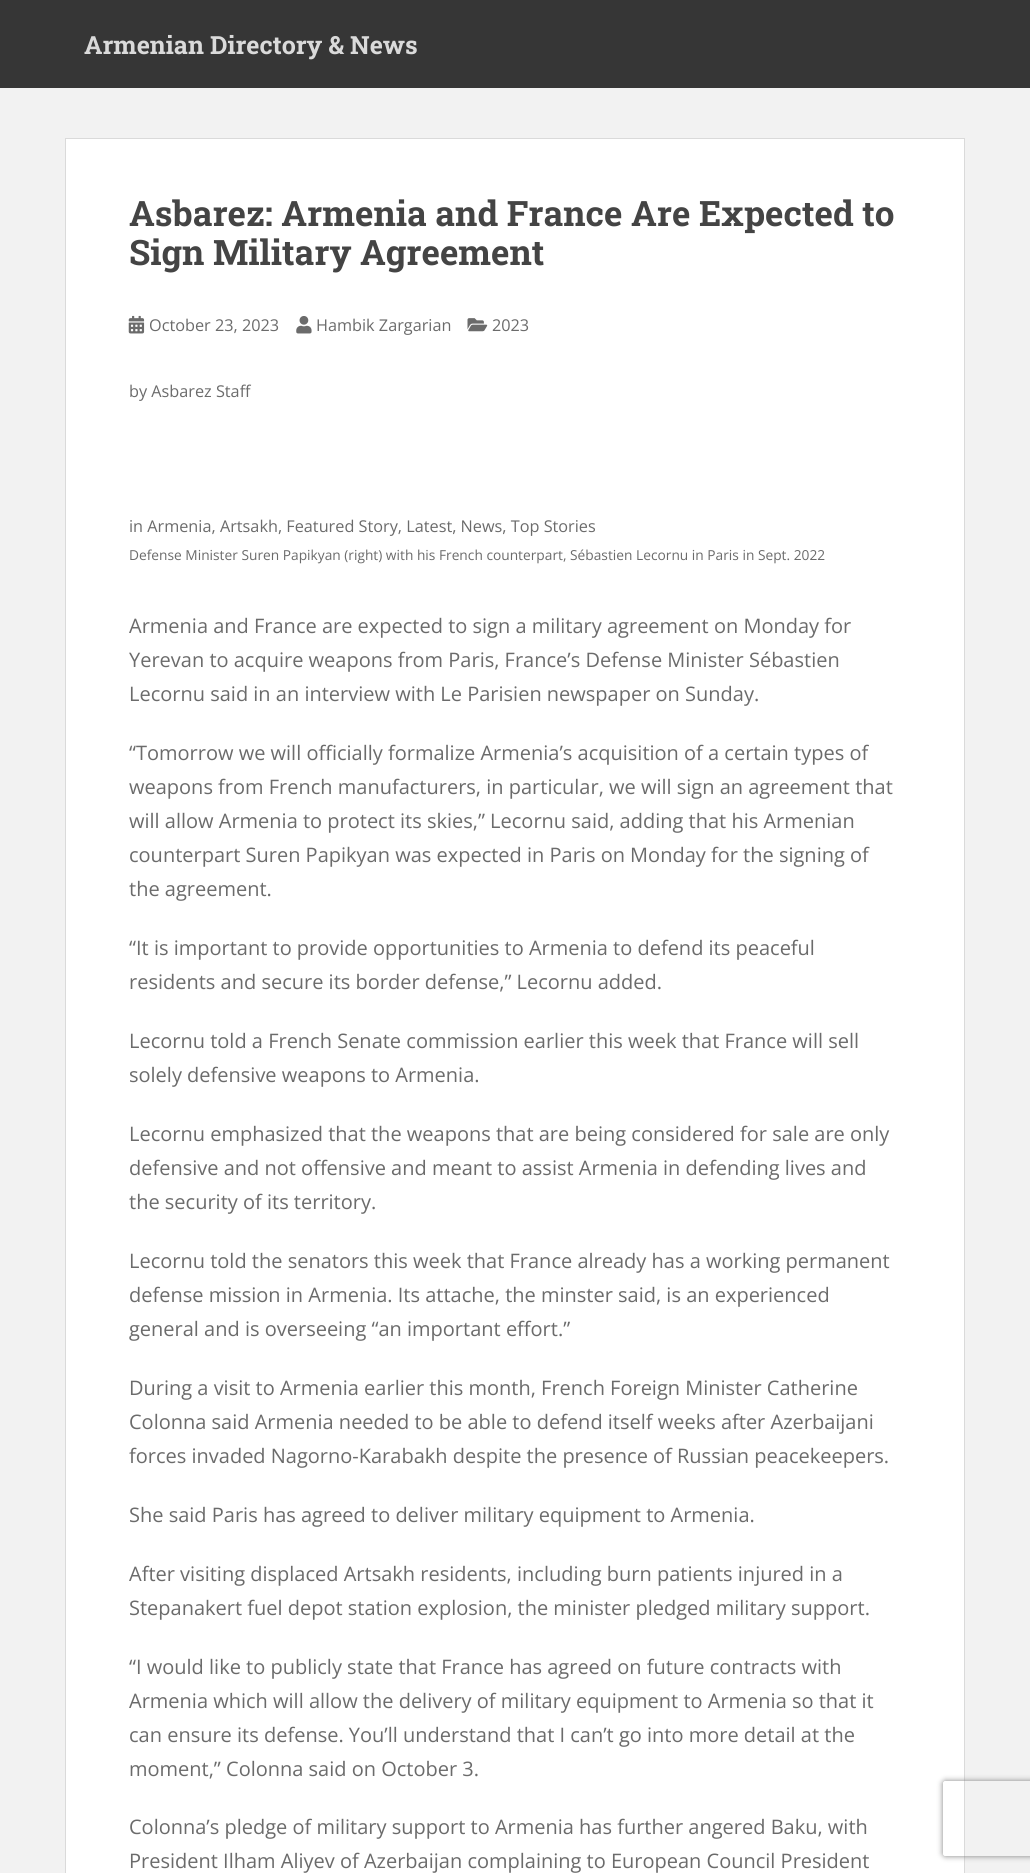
#include <cairo.h>
#include <math.h>
#include <stddef.h>

typedef struct { const char *family; double size; int italic, bold; unsigned color; } style_t;
static cairo_t *ctx;

static void ink(unsigned color) {
    cairo_set_source_rgb(ctx, (color >> 16) / 255.0, (color >> 8 & 255) / 255.0, (color & 255) / 255.0);
}

static void write(double x, double y, const char *s, const style_t *st) {
    cairo_select_font_face(ctx, st->family, st->italic ? CAIRO_FONT_SLANT_ITALIC : CAIRO_FONT_SLANT_NORMAL,
        st->bold ? CAIRO_FONT_WEIGHT_BOLD : CAIRO_FONT_WEIGHT_NORMAL);
    cairo_set_font_size(ctx, st->size);
    ink(st->color);
    cairo_move_to(ctx, x, y);
    cairo_show_text(ctx, s);
}

static void block(double x, double y, double w, double h, unsigned color) {
    ink(color);
    cairo_rectangle(ctx, x, y, w, h);
    cairo_fill(ctx);
}

static void round_path(double x, double y, double w, double h, double r) {
    cairo_new_sub_path(ctx);
    cairo_arc(ctx, x + w - r, y + h - r, r, 0, M_PI / 2);
    cairo_arc(ctx, x + r, y + h - r, r, M_PI / 2, M_PI);
    cairo_arc(ctx, x + r, y + r, r, M_PI, 1.5 * M_PI);
    cairo_arc(ctx, x + w - r, y + r, r, 1.5 * M_PI, 2 * M_PI);
    cairo_close_path(ctx);
}

static void blur_box(double x, double y, double w, double h, double r, double blur, double alpha) {
    cairo_push_group_with_content(ctx, CAIRO_CONTENT_ALPHA);
    cairo_set_operator(ctx, CAIRO_OPERATOR_SOURCE);
    for (int i = 15; i >= -15 && fmin(w, h) + blur * i / 3 > 0; i -= 2) {
        double e = blur * i / 6;
        cairo_set_source_rgba(ctx, 0, 0, 0, alpha * erfc((i - 1) / 8.5) / 2);
        round_path(x - e, y - e, w + 2 * e, h + 2 * e, fmax(0, fmin(r + e + blur * .6, fmin(w, h) / 2 + e)));
        cairo_fill(ctx);
    }
    cairo_pattern_t *soft = cairo_pop_group(ctx);
    cairo_mask(ctx, soft);
    cairo_pattern_destroy(soft);
}

static void paste(const char *path, double x, double y, double w, double h) {
    cairo_surface_t *image = cairo_image_surface_create_from_png(path);
    cairo_save(ctx);
    cairo_set_source_surface(ctx, image, x, y);
    cairo_rectangle(ctx, x, y, w, h);
    cairo_fill(ctx);
    cairo_restore(ctx);
    cairo_surface_destroy(image);
}

static const style_t s1 = {"Roboto Slab", 25, 0, 1, 0xdadada};
static const style_t s2 = {"Roboto Slab", 35, 0, 1, 0x444444};
static const style_t s3 = {"Open Sans", 16.25, 0, 0, 0x6b6b6b};
static const style_t s4 = {"Open Sans", 13.75, 0, 0, 0x6b6b6b};
static const style_t s5 = {"Open Sans", 20, 0, 0, 0x6b6b6b};

int main(void) {
    cairo_surface_t *surface = cairo_image_surface_create(CAIRO_FORMAT_RGB24, 1030, 1873);
    ctx = cairo_create(surface);
    cairo_font_options_t *options = cairo_font_options_create();
    cairo_font_options_set_hint_metrics(options, CAIRO_HINT_METRICS_OFF);
    cairo_font_options_set_hint_style(options, CAIRO_HINT_STYLE_NONE);
    cairo_set_font_options(ctx, options);
    cairo_set_miter_limit(ctx, 4);
    ink(0xf2f2f2);
    cairo_paint(ctx);
    block(0, 0, 1030, 88, 0x363636);
    write(84, 54, "Armenian Directory & News", &s1);
    ink(0xffffff);
    cairo_rectangle(ctx, 65.5, 138.5, 899, 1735);
    cairo_fill_preserve(ctx);
    ink(0xdadada);
    cairo_set_line_width(ctx, 1);
    cairo_stroke(ctx);
    write(129, 226, "Asbarez: Armenia and France Are Expected to", &s2);
    write(129, 265, "Sign Military Agreement", &s2);
    paste("pic1.png", 128, 315, 17, 19);
    write(149, 331, "October 23, 2023", &s3);
    paste("pic2.png", 296, 316, 16, 18);
    write(316, 331, "Hambik Zargarian", &s3);
    paste("pic3.png", 467, 318, 21, 14);
    write(492, 331, "2023", &s3);
    write(129, 397, "by Asbarez Staff", &s3);
    write(129, 532, "in Armenia, Artsakh, Featured Story, Latest, News, Top Stories", &s3);
    write(129, 560, "Defense Minister Suren Papikyan (right) with his French counterpart, Sébastien Lecornu in Paris in Sept. 2022", &s4);
    write(129, 633, "Armenia and France are expected to sign a military agreement on Monday for", &s5);
    write(129, 667, "Yerevan to acquire weapons from Paris, France’s Defense Minister Sébastien", &s5);
    write(129, 701, "Lecornu said in an interview with Le Parisien newspaper on Sunday.", &s5);
    write(129, 760, "“Tomorrow we will officially formalize Armenia’s acquisition of a certain types of", &s5);
    write(129, 794, "weapons from French manufacturers, in particular, we will sign an agreement that", &s5);
    write(129, 828, "will allow Armenia to protect its skies,” Lecornu said, adding that his Armenian", &s5);
    write(129, 862, "counterpart Suren Papikyan was expected in Paris on Monday for the signing of", &s5);
    write(129, 896, "the agreement.", &s5);
    write(129, 955, "“It is important to provide opportunities to Armenia to defend its peaceful", &s5);
    write(129, 989, "residents and secure its border defense,” Lecornu added.", &s5);
    write(129, 1048, "Lecornu told a French Senate commission earlier this week that France will sell", &s5);
    write(129, 1082, "solely defensive weapons to Armenia.", &s5);
    write(129, 1141, "Lecornu emphasized that the weapons that are being considered for sale are only", &s5);
    write(129, 1175, "defensive and not offensive and meant to assist Armenia in defending lives and", &s5);
    write(129, 1209, "the security of its territory.", &s5);
    write(129, 1268, "Lecornu told the senators this week that France already has a working permanent", &s5);
    write(129, 1302, "defense mission in Armenia. Its attache, the minster said, is an experienced", &s5);
    write(129, 1336, "general and is overseeing “an important effort.”", &s5);
    write(129, 1395, "During a visit to Armenia earlier this month, French Foreign Minister Catherine", &s5);
    write(129, 1429, "Colonna said Armenia needed to be able to defend itself weeks after Azerbaijani", &s5);
    write(129, 1463, "forces invaded Nagorno-Karabakh despite the presence of Russian peacekeepers.", &s5);
    write(129, 1522, "She said Paris has agreed to deliver military equipment to Armenia.", &s5);
    write(129, 1581, "After visiting displaced Artsakh residents, including burn patients injured in a", &s5);
    write(129, 1615, "Stepanakert fuel depot station explosion, the minister pledged military support.", &s5);
    write(129, 1674, "“I would like to publicly state that France has agreed on future contracts with", &s5);
    write(129, 1708, "Armenia which will allow the delivery of military equipment to Armenia so that it", &s5);
    write(129, 1742, "can ensure its defense. You’ll understand that I can’t go into more detail at the", &s5);
    write(129, 1776, "moment,” Colonna said on October 3.", &s5);
    write(129, 1834, "Colonna’s pledge of military support to Armenia has further angered Baku, with", &s5);
    write(129, 1868, "President Ilham Aliyev of Azerbaijan complaining to European Council President", &s5);
    cairo_save(ctx);
    cairo_set_fill_rule(ctx, CAIRO_FILL_RULE_EVEN_ODD);
    cairo_new_path(ctx);
    cairo_move_to(ctx, 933, 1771);
    cairo_line_to(ctx, 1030, 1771);
    cairo_line_to(ctx, 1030, 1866);
    cairo_line_to(ctx, 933, 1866);
    cairo_close_path(ctx);
    cairo_move_to(ctx, 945.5, 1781);
    cairo_line_to(ctx, 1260.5, 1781);
    cairo_curve_to(ctx, 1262, 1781, 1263, 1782, 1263, 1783.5);
    cairo_line_to(ctx, 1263, 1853.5);
    cairo_curve_to(ctx, 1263, 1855, 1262, 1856, 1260.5, 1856);
    cairo_line_to(ctx, 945.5, 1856);
    cairo_curve_to(ctx, 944, 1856, 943, 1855, 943, 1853.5);
    cairo_line_to(ctx, 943, 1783.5);
    cairo_curve_to(ctx, 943, 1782, 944, 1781, 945.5, 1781);
    cairo_close_path(ctx);
    cairo_clip(ctx);
    ink(0x808080);
    blur_box(943, 1781, 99, 75, 2.5, 3, 1);
    cairo_restore(ctx);
    cairo_surface_write_to_png(surface, "screenshot.png");
    cairo_font_options_destroy(options);
    cairo_destroy(ctx);
    cairo_surface_destroy(surface);
    return 0;
}
